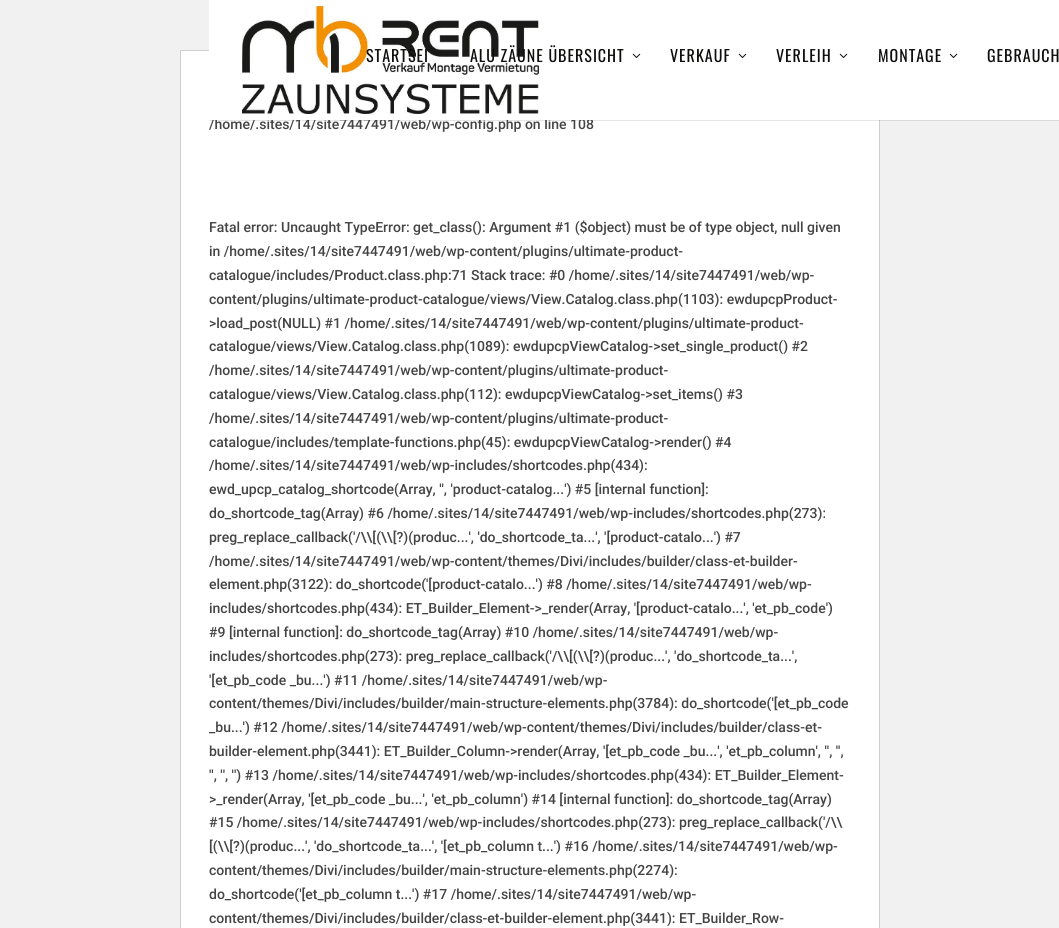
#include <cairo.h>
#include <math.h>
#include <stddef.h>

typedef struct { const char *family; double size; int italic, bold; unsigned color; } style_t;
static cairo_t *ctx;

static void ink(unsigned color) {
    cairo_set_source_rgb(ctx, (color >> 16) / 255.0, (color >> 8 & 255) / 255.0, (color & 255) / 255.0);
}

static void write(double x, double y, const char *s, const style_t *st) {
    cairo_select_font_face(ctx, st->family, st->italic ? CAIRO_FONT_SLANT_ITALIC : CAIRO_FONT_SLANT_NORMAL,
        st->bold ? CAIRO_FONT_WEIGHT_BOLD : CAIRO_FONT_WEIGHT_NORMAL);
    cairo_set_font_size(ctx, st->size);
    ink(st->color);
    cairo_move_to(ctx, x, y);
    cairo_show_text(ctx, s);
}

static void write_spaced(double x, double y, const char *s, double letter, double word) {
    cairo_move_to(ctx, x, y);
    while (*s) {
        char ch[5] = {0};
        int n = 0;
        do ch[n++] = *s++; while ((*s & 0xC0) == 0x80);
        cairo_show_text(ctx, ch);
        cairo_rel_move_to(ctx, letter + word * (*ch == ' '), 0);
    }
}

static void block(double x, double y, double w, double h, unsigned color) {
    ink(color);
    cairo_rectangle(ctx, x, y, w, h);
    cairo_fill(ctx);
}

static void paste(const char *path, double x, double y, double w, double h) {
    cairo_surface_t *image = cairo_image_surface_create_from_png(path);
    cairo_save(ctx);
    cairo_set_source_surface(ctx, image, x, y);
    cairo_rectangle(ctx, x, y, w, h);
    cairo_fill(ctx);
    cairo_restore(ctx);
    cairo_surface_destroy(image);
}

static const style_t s1 = {"Roboto Medium", 14, 0, 0, 0x444444};

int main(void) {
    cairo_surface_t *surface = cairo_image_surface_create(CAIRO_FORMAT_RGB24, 1059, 928);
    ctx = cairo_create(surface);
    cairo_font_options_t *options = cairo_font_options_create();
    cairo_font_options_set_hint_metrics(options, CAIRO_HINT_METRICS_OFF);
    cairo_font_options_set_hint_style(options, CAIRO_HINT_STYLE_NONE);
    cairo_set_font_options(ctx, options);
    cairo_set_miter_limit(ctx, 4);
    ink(0xf1f1f1);
    cairo_paint(ctx);
    ink(0xffffff);
    cairo_rectangle(ctx, 180.5, 50.5, 699, 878);
    cairo_fill_preserve(ctx);
    ink(0xccd0d4);
    cairo_set_line_width(ctx, 1);
    cairo_stroke(ctx);
    cairo_set_source_rgba(ctx, 0, 0, 0, 0.1);
    cairo_rectangle(ctx, 209, 120, 850, 1);
    cairo_fill(ctx);
    write(209, 129, "/home/.sites/14/site7447491/web/wp-config.php on line 108", &s1);
    block(209, 0, 850, 120, 0xffffff);
    paste("pic1.png", 242, 6, 297, 108);
    cairo_select_font_face(ctx, "Oswald", CAIRO_FONT_SLANT_NORMAL, CAIRO_FONT_WEIGHT_NORMAL);
    cairo_set_font_size(ctx, 16);
    ink(0x0d0d0c);
    write_spaced(366, 62, "STARTSEI", 1, 0);
    write_spaced(470, 62, "ALU ZÄUNE ÜBERSICHT", 1, 0);
    paste("pic2.png", 632, 53, 9, 5);
    write_spaced(670, 62, "VERKAUF", 1, 0);
    paste("pic2.png", 738, 53, 9, 5);
    write_spaced(776, 62, "VERLEIH", 1, 0);
    paste("pic2.png", 839, 53, 9, 5);
    write_spaced(878, 62, "MONTAGE", 1, 0);
    paste("pic2.png", 949, 53, 9, 5);
    write_spaced(987, 62, "GEBRAUCH", 1, 0);
    write(209, 232, "Fatal error: Uncaught TypeError: get_class(): Argument #1 ($object) must be of type object, null given", &s1);
    write(209, 256, "in /home/.sites/14/site7447491/web/wp-content/plugins/ultimate-product-", &s1);
    write(209, 280, "catalogue/includes/Product.class.php:71 Stack trace: #0 /home/.sites/14/site7447491/web/wp-", &s1);
    write(209, 304, "content/plugins/ultimate-product-catalogue/views/View.Catalog.class.php(1103): ewdupcpProduct-", &s1);
    write(209, 328, ">load_post(NULL) #1 /home/.sites/14/site7447491/web/wp-content/plugins/ultimate-product-", &s1);
    write(209, 351, "catalogue/views/View.Catalog.class.php(1089): ewdupcpViewCatalog->set_single_product() #2", &s1);
    write(209, 375, "/home/.sites/14/site7447491/web/wp-content/plugins/ultimate-product-", &s1);
    write(209, 399, "catalogue/views/View.Catalog.class.php(112): ewdupcpViewCatalog->set_items() #3", &s1);
    write(209, 423, "/home/.sites/14/site7447491/web/wp-content/plugins/ultimate-product-", &s1);
    write(209, 447, "catalogue/includes/template-functions.php(45): ewdupcpViewCatalog->render() #4", &s1);
    write(209, 470, "/home/.sites/14/site7447491/web/wp-includes/shortcodes.php(434):", &s1);
    write(209, 494, "ewd_upcp_catalog_shortcode(Array, '', 'product-catalog...') #5 [internal function]:", &s1);
    write(209, 518, "do_shortcode_tag(Array) #6 /home/.sites/14/site7447491/web/wp-includes/shortcodes.php(273):", &s1);
    write(209, 542, "preg_replace_callback('/\\\\[(\\\\[?)(produc...', 'do_shortcode_ta...', '[product-catalo...') #7", &s1);
    write(209, 566, "/home/.sites/14/site7447491/web/wp-content/themes/Divi/includes/builder/class-et-builder-", &s1);
    write(209, 589, "element.php(3122): do_shortcode('[product-catalo...') #8 /home/.sites/14/site7447491/web/wp-", &s1);
    write(209, 613, "includes/shortcodes.php(434): ET_Builder_Element->_render(Array, '[product-catalo...', 'et_pb_code')", &s1);
    write(209, 637, "#9 [internal function]: do_shortcode_tag(Array) #10 /home/.sites/14/site7447491/web/wp-", &s1);
    write(209, 661, "includes/shortcodes.php(273): preg_replace_callback('/\\\\[(\\\\[?)(produc...', 'do_shortcode_ta...',", &s1);
    write(209, 685, "'[et_pb_code _bu...') #11 /home/.sites/14/site7447491/web/wp-", &s1);
    write(209, 708, "content/themes/Divi/includes/builder/main-structure-elements.php(3784): do_shortcode('[et_pb_code", &s1);
    write(209, 732, "_bu...') #12 /home/.sites/14/site7447491/web/wp-content/themes/Divi/includes/builder/class-et-", &s1);
    write(209, 756, "builder-element.php(3441): ET_Builder_Column->render(Array, '[et_pb_code _bu...', 'et_pb_column', '', '',", &s1);
    write(209, 780, "'', '', '') #13 /home/.sites/14/site7447491/web/wp-includes/shortcodes.php(434): ET_Builder_Element-", &s1);
    write(209, 804, ">_render(Array, '[et_pb_code _bu...', 'et_pb_column') #14 [internal function]: do_shortcode_tag(Array)", &s1);
    write(209, 827, "#15 /home/.sites/14/site7447491/web/wp-includes/shortcodes.php(273): preg_replace_callback('/\\\\", &s1);
    write(209, 851, "[(\\\\[?)(produc...', 'do_shortcode_ta...', '[et_pb_column t...') #16 /home/.sites/14/site7447491/web/wp-", &s1);
    write(209, 875, "content/themes/Divi/includes/builder/main-structure-elements.php(2274):", &s1);
    write(209, 899, "do_shortcode('[et_pb_column t...') #17 /home/.sites/14/site7447491/web/wp-", &s1);
    write(209, 923, "content/themes/Divi/includes/builder/class-et-builder-element.php(3441): ET_Builder_Row-", &s1);
    cairo_surface_write_to_png(surface, "screenshot.png");
    cairo_font_options_destroy(options);
    cairo_destroy(ctx);
    cairo_surface_destroy(surface);
    return 0;
}
